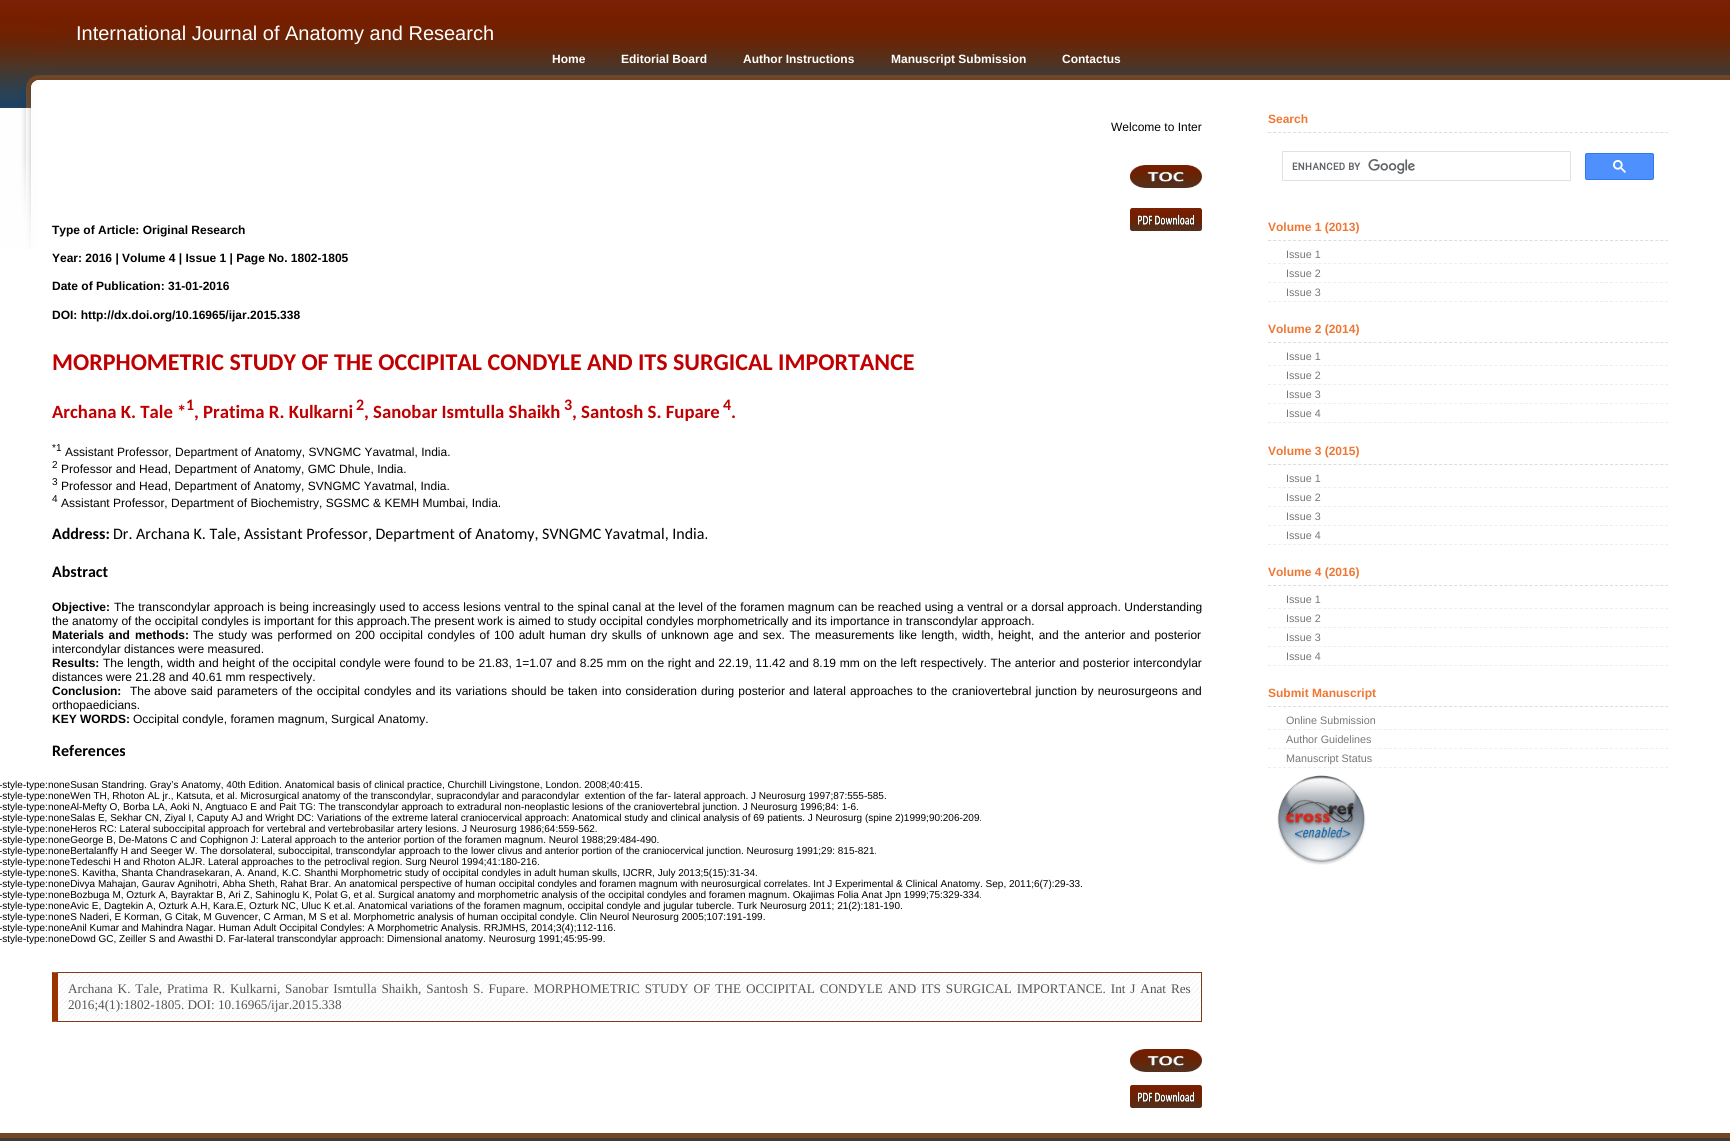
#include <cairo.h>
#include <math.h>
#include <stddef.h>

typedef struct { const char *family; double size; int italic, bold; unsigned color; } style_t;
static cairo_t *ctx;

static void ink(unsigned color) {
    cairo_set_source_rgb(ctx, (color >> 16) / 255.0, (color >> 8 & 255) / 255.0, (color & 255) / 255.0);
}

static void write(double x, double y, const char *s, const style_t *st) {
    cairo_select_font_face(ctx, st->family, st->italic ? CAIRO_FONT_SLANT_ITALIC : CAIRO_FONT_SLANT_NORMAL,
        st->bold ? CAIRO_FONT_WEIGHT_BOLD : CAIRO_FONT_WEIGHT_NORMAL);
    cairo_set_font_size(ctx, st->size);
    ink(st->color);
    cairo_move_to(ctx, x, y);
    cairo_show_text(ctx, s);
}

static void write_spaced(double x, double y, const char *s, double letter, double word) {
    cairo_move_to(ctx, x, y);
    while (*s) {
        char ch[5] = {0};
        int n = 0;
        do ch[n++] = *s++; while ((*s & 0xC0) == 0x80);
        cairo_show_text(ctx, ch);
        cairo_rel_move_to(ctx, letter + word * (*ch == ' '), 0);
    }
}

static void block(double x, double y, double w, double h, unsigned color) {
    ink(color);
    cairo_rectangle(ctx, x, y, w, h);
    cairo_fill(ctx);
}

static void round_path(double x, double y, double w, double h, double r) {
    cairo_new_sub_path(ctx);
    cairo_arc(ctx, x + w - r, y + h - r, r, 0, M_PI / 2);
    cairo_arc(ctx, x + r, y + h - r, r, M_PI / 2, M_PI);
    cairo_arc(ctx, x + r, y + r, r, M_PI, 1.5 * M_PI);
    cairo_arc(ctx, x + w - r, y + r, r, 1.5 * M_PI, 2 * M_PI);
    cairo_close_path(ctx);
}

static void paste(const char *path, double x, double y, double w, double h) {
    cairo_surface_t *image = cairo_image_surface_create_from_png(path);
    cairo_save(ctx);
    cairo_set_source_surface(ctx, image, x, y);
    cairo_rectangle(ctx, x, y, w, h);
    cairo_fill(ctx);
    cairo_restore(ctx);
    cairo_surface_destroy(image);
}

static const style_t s1 = {"Liberation Sans", 20, 0, 0, 0xffffff};
static const style_t s2 = {"Liberation Sans", 12, 0, 1, 0xffffff};
static const style_t s3 = {"Liberation Sans", 12, 0, 0, 0x000000};
static const style_t s4 = {"Liberation Sans", 12, 0, 1, 0x000000};
static const style_t s5 = {"Carlito", 24, 0, 1, 0xc00000};
static const style_t s6 = {"Carlito", 18.75, 0, 1, 0xc00000};
static const style_t s7 = {"Carlito", 16, 0, 1, 0xc00000};
static const style_t s8 = {"Liberation Sans", 10, 0, 0, 0x000000};
static const style_t s9 = {"Carlito", 16, 0, 1, 0x000000};
static const style_t s10 = {"Carlito", 16, 0, 0, 0x000000};
static const style_t s11 = {"Liberation Serif", 13.2, 0, 0, 0x555555};
static const style_t s12 = {"Liberation Sans", 12, 0, 1, 0xee7733};
static const style_t s13 = {"Liberation Sans", 10.75, 0, 0, 0x777777};

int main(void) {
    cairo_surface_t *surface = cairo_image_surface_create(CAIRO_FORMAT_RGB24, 1730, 1141);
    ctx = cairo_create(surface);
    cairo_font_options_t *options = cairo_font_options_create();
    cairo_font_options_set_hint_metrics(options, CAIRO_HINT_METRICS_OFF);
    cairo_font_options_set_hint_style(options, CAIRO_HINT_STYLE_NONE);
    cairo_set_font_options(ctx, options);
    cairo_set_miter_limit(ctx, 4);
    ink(0xffffff);
    cairo_paint(ctx);
    paste("pic1.png", 0, 0, 1730, 80);
    paste("pic2.png", 0, 21, 59, 59);
    write(76, 40, "International Journal of Anatomy and Research", &s1);
    write(552, 63, "Home", &s2);
    write(621, 63, "Editorial Board", &s2);
    write(743, 63, "Author Instructions", &s2);
    write(891, 63, "Manuscript Submission", &s2);
    write(1062, 63, "Contactus", &s2);
    paste("pic3.png", 0, 80, 37, 169);
    write(1111, 131, "Welcome to Inter", &s3);
    paste("pic4.png", 1130, 165, 72, 23);
    write(52, 234, "Type of Article: Original Research", &s4);
    paste("pic5.png", 1130, 208, 72, 23);
    write(52, 262, "Year: 2016 | Volume 4 | Issue 1 | Page No. 1802-1805", &s4);
    write(52, 290, "Date of Publication: 31-01-2016", &s4);
    write(52, 319, "DOI: http://dx.doi.org/10.16965/ijar.2015.338", &s4);
    write(52, 370, "MORPHOMETRIC STUDY OF THE OCCIPITAL CONDYLE AND ITS SURGICAL IMPORTANCE", &s5);
    write(52, 418, "Archana K. Tale *", &s6);
    write(186, 410, "1", &s7);
    write(194, 418, ", Pratima R. Kulkarni", &s6);
    write(356, 410, "2", &s7);
    write(364, 418, ", Sanobar Ismtulla Shaikh", &s6);
    write(564, 410, "3", &s7);
    write(572, 418, ", Santosh S. Fupare", &s6);
    write(723, 410, "4", &s7);
    write(731, 418, ".", &s6);
    write(52, 451, "*1", &s8);
    write(65, 456, "Assistant Professor, Department of Anatomy, SVNGMC Yavatmal, India.", &s3);
    write(52, 468, "2", &s8);
    write(61, 473, "Professor and Head, Department of Anatomy, GMC Dhule, India.", &s3);
    write(52, 485, "3", &s8);
    write(61, 490, "Professor and Head, Department of Anatomy, SVNGMC Yavatmal, India.", &s3);
    write(52, 502, "4", &s8);
    write(61, 507, "Assistant Professor, Department of Biochemistry, SGSMC & KEMH Mumbai, India.", &s3);
    write(52, 539, "Address:", &s9);
    write(113, 539, "Dr. Archana K. Tale, Assistant Professor, Department of Anatomy, SVNGMC Yavatmal, India.", &s10);
    write(52, 577, "Abstract", &s9);
    write(52, 611, "Objective:", &s4);
    cairo_select_font_face(ctx, "Liberation Sans", CAIRO_FONT_SLANT_NORMAL, CAIRO_FONT_WEIGHT_NORMAL);
    write_spaced(114, 611, "The transcondylar approach is being increasingly used to access lesions ventral to the spinal canal at the level of the foramen magnum can be reached using a ventral or a dorsal approach. Understanding", 0, 0.2);
    write(52, 625, "the anatomy of the occipital condyles is important for this approach.The present work is aimed to study occipital condyles morphometrically and its importance in transcondylar approach.", &s3);
    cairo_select_font_face(ctx, "Liberation Sans", CAIRO_FONT_SLANT_NORMAL, CAIRO_FONT_WEIGHT_BOLD);
    write_spaced(52, 639, "Materials and", 0, 1.25);
    write(135, 639, "methods:", &s4);
    cairo_select_font_face(ctx, "Liberation Sans", CAIRO_FONT_SLANT_NORMAL, CAIRO_FONT_WEIGHT_NORMAL);
    write_spaced(193, 639, "The study was performed on", 0, 1.25);
    write_spaced(355, 639, "200 occipital condyles of 100 adult human dry skulls of unknown age and sex. The", 0, 1.25);
    write_spaced(815, 639, "measurements like length, width, height, and the anterior and posterior", 0, 1.25);
    write(52, 653, "intercondylar distances were measured.", &s3);
    write(52, 667, "Results:", &s4);
    cairo_select_font_face(ctx, "Liberation Sans", CAIRO_FONT_SLANT_NORMAL, CAIRO_FONT_WEIGHT_NORMAL);
    write_spaced(103, 667, "The length, width and height of the occipital condyle were found to be 21.83, 1=1.07 and 8.25 mm on the right and 22.19, 11.42 and 8.19 mm on the left respectively. The anterior and posterior intercondylar", 0, 0.3);
    write(52, 681, "distances were 21.28 and 40.61 mm respectively.", &s3);
    write(52, 695, "Conclusion:", &s4);
    write(130, 695, "The", &s3);
    write_spaced(154, 695, "above said", 0, 0.75);
    write_spaced(217, 695, "parameters of the occipital condyles and its variations should be taken", 0, 0.75);
    write_spaced(602, 695, "into consideration during posterior and lateral approaches to the", 0, 0.75);
    write_spaced(952, 695, "craniovertebral junction by neurosurgeons and", 0, 0.75);
    write(52, 709, "orthopaedicians.", &s3);
    write(52, 723, "KEY WORDS:", &s4);
    write(133, 723, "Occipital condyle, foramen magnum, Surgical Anatomy.", &s3);
    write(52, 756, "References", &s9);
    write(-1, 788, "-style-type:noneSusan Standring. Gray’s Anatomy, 40th Edition. Anatomical basis of clinical practice, Churchill Livingstone, London. 2008;40:415.", &s8);
    write(-1, 799, "-style-type:noneWen TH, Rhoton AL jr., Katsuta, et al. Microsurgical anatomy of the transcondylar, supracondylar and paracondylar  extention of the far- lateral approach. J Neurosurg 1997;87:555-585.", &s8);
    write(-1, 810, "-style-type:noneAl-Mefty O, Borba LA, Aoki N, Angtuaco E and Pait TG: The transcondylar approach to extradural non-neoplastic lesions of the craniovertebral junction. J Neurosurg 1996;84: 1-6.", &s8);
    write(-1, 821, "-style-type:noneSalas E, Sekhar CN, Ziyal I, Caputy AJ and Wright DC: Variations of the extreme lateral craniocervical approach: Anatomical study and clinical analysis of 69 patients. J Neurosurg (spine 2)1999;90:206-209.", &s8);
    write(-1, 832, "-style-type:noneHeros RC: Lateral suboccipital approach for vertebral and vertebrobasilar artery lesions. J Neurosurg 1986;64:559-562.", &s8);
    write(-1, 843, "-style-type:noneGeorge B, De-Matons C and Cophignon J: Lateral approach to the anterior portion of the foramen magnum. Neurol 1988;29:484-490.", &s8);
    write(-1, 854, "-style-type:noneBertalanffy H and Seeger W. The dorsolateral, suboccipital, transcondylar approach to the lower clivus and anterior portion of the craniocervical junction. Neurosurg 1991;29: 815-821.", &s8);
    write(-1, 865, "-style-type:noneTedeschi H and Rhoton ALJR. Lateral approaches to the petroclival region. Surg Neurol 1994;41:180-216.", &s8);
    write(-1, 876, "-style-type:noneS. Kavitha, Shanta Chandrasekaran, A. Anand, K.C. Shanthi Morphometric study of occipital condyles in adult human skulls, IJCRR, July 2013;5(15):31-34.", &s8);
    write(-1, 887, "-style-type:noneDivya Mahajan, Gaurav Agnihotri, Abha Sheth, Rahat Brar. An anatomical perspective of human occipital condyles and foramen magnum with neurosurgical correlates. Int J Experimental & Clinical Anatomy. Sep, 2011;6(7):29-33.", &s8);
    write(-1, 898, "-style-type:noneBozbuga M, Ozturk A, Bayraktar B, Ari Z, Sahinoglu K, Polat G, et al. Surgical anatomy and morphometric analysis of the occipital condyles and foramen magnum. Okajimas Folia Anat Jpn 1999;75:329-334.", &s8);
    write(-1, 909, "-style-type:noneAvic E, Dagtekin A, Ozturk A.H, Kara.E, Ozturk NC, Uluc K et.al. Anatomical variations of the foramen magnum, occipital condyle and jugular tubercle. Turk Neurosurg 2011; 21(2):181-190.", &s8);
    write(-1, 920, "-style-type:noneS Naderi, E Korman, G Citak, M Guvencer, C Arman, M S et al. Morphometric analysis of human occipital condyle. Clin Neurol Neurosurg 2005;107:191-199.", &s8);
    write(-1, 931, "-style-type:noneAnil Kumar and Mahindra Nagar. Human Adult Occipital Condyles: A Morphometric Analysis. RRJMHS, 2014;3(4);112-116.", &s8);
    write(-1, 942, "-style-type:noneDowd GC, Zeiller S and Awasthi D. Far-lateral transcondylar approach: Dimensional anatomy. Neurosurg 1991;45:95-99.", &s8);
    paste("pic6.png", 52, 972, 1149, 50);
    ink(0x7c3b19);
    cairo_new_path(ctx);
    cairo_move_to(ctx, 52, 972);
    cairo_line_to(ctx, 1202, 972);
    cairo_line_to(ctx, 1201, 973);
    cairo_line_to(ctx, 58, 973);
    cairo_close_path(ctx);
    cairo_fill(ctx);
    block(1201, 972, 1, 50, 0x7c3b19);
    cairo_new_path(ctx);
    cairo_move_to(ctx, 1202, 1022);
    cairo_line_to(ctx, 52, 1022);
    cairo_line_to(ctx, 58, 1021);
    cairo_line_to(ctx, 1201, 1021);
    cairo_close_path(ctx);
    cairo_fill(ctx);
    ink(0x993300);
    cairo_new_path(ctx);
    cairo_move_to(ctx, 52, 1022);
    cairo_line_to(ctx, 52, 972);
    cairo_line_to(ctx, 58, 973);
    cairo_line_to(ctx, 58, 1021);
    cairo_close_path(ctx);
    cairo_fill(ctx);
    cairo_select_font_face(ctx, "Liberation Serif", CAIRO_FONT_SLANT_NORMAL, CAIRO_FONT_WEIGHT_NORMAL);
    cairo_set_font_size(ctx, 13.2);
    ink(0x555555);
    write_spaced(68, 993, "Archana K. Tale, Pratima R. Kulkarni, Sanobar Ismtulla Shaikh, Santosh S. Fupare. MORPHOMETRIC STUDY OF THE OCCIPITAL CONDYLE AND ITS SURGICAL IMPORTANCE. Int J Anat Res", 0, 1.6);
    write(68, 1009, "2016;4(1):1802-1805. DOI: 10.16965/ijar.2015.338", &s11);
    paste("pic4.png", 1130, 1049, 72, 23);
    paste("pic5.png", 1130, 1085, 72, 23);
    cairo_new_path(ctx);
    cairo_move_to(ctx, 1268, 132.5);
    cairo_line_to(ctx, 1668, 132.5);
    ink(0xdddddd);
    cairo_set_line_width(ctx, 1);
    cairo_set_dash(ctx, (double[]){3, 2.03}, 2, 0);
    cairo_stroke(ctx);
    write(1268, 123, "Search", &s12);
    cairo_rectangle(ctx, 1282.5, 151.5, 288, 29);
    ink(0xdfe1e5);
    cairo_set_dash(ctx, NULL, 0, 0);
    cairo_stroke(ctx);
    paste("pic7.png", 1292, 159, 123, 15);
    ink(0x4d90fe);
    round_path(1585.5, 153.5, 68, 26, 1.5);
    cairo_fill_preserve(ctx);
    ink(0x3079ed);
    cairo_stroke(ctx);
    paste("pic8.png", 1613, 160, 13, 13);
    cairo_new_path(ctx);
    cairo_move_to(ctx, 1268, 240.5);
    cairo_line_to(ctx, 1668, 240.5);
    ink(0xdddddd);
    cairo_set_dash(ctx, (double[]){3, 2.03}, 2, 0);
    cairo_stroke(ctx);
    write(1268, 231, "Volume 1 (2013)", &s12);
    cairo_new_path(ctx);
    cairo_move_to(ctx, 1268, 263.5);
    cairo_line_to(ctx, 1668, 263.5);
    ink(0xeeeeee);
    cairo_stroke(ctx);
    write(1286, 258, "Issue 1", &s13);
    cairo_new_path(ctx);
    cairo_move_to(ctx, 1268, 282.5);
    cairo_line_to(ctx, 1668, 282.5);
    ink(0xeeeeee);
    cairo_stroke(ctx);
    write(1286, 277, "Issue 2", &s13);
    cairo_new_path(ctx);
    cairo_move_to(ctx, 1268, 301.5);
    cairo_line_to(ctx, 1668, 301.5);
    ink(0xeeeeee);
    cairo_stroke(ctx);
    write(1286, 296, "Issue 3", &s13);
    cairo_new_path(ctx);
    cairo_move_to(ctx, 1268, 342.5);
    cairo_line_to(ctx, 1668, 342.5);
    ink(0xdddddd);
    cairo_stroke(ctx);
    write(1268, 333, "Volume 2 (2014)", &s12);
    cairo_new_path(ctx);
    cairo_move_to(ctx, 1268, 365.5);
    cairo_line_to(ctx, 1668, 365.5);
    ink(0xeeeeee);
    cairo_stroke(ctx);
    write(1286, 360, "Issue 1", &s13);
    cairo_new_path(ctx);
    cairo_move_to(ctx, 1268, 384.5);
    cairo_line_to(ctx, 1668, 384.5);
    ink(0xeeeeee);
    cairo_stroke(ctx);
    write(1286, 379, "Issue 2", &s13);
    cairo_new_path(ctx);
    cairo_move_to(ctx, 1268, 403.5);
    cairo_line_to(ctx, 1668, 403.5);
    ink(0xeeeeee);
    cairo_stroke(ctx);
    write(1286, 398, "Issue 3", &s13);
    cairo_new_path(ctx);
    cairo_move_to(ctx, 1268, 422.5);
    cairo_line_to(ctx, 1668, 422.5);
    ink(0xeeeeee);
    cairo_stroke(ctx);
    write(1286, 417, "Issue 4", &s13);
    cairo_new_path(ctx);
    cairo_move_to(ctx, 1268, 464.5);
    cairo_line_to(ctx, 1668, 464.5);
    ink(0xdddddd);
    cairo_stroke(ctx);
    write(1268, 455, "Volume 3 (2015)", &s12);
    cairo_new_path(ctx);
    cairo_move_to(ctx, 1268, 487.5);
    cairo_line_to(ctx, 1668, 487.5);
    ink(0xeeeeee);
    cairo_stroke(ctx);
    write(1286, 482, "Issue 1", &s13);
    cairo_new_path(ctx);
    cairo_move_to(ctx, 1268, 506.5);
    cairo_line_to(ctx, 1668, 506.5);
    ink(0xeeeeee);
    cairo_stroke(ctx);
    write(1286, 501, "Issue 2", &s13);
    cairo_new_path(ctx);
    cairo_move_to(ctx, 1268, 525.5);
    cairo_line_to(ctx, 1668, 525.5);
    ink(0xeeeeee);
    cairo_stroke(ctx);
    write(1286, 520, "Issue 3", &s13);
    cairo_new_path(ctx);
    cairo_move_to(ctx, 1268, 544.5);
    cairo_line_to(ctx, 1668, 544.5);
    ink(0xeeeeee);
    cairo_stroke(ctx);
    write(1286, 539, "Issue 4", &s13);
    cairo_new_path(ctx);
    cairo_move_to(ctx, 1268, 585.5);
    cairo_line_to(ctx, 1668, 585.5);
    ink(0xdddddd);
    cairo_stroke(ctx);
    write(1268, 576, "Volume 4 (2016)", &s12);
    cairo_new_path(ctx);
    cairo_move_to(ctx, 1268, 608.5);
    cairo_line_to(ctx, 1668, 608.5);
    ink(0xeeeeee);
    cairo_stroke(ctx);
    write(1286, 603, "Issue 1", &s13);
    cairo_new_path(ctx);
    cairo_move_to(ctx, 1268, 627.5);
    cairo_line_to(ctx, 1668, 627.5);
    ink(0xeeeeee);
    cairo_stroke(ctx);
    write(1286, 622, "Issue 2", &s13);
    cairo_new_path(ctx);
    cairo_move_to(ctx, 1268, 646.5);
    cairo_line_to(ctx, 1668, 646.5);
    ink(0xeeeeee);
    cairo_stroke(ctx);
    write(1286, 641, "Issue 3", &s13);
    cairo_new_path(ctx);
    cairo_move_to(ctx, 1268, 665.5);
    cairo_line_to(ctx, 1668, 665.5);
    ink(0xeeeeee);
    cairo_stroke(ctx);
    write(1286, 660, "Issue 4", &s13);
    cairo_new_path(ctx);
    cairo_move_to(ctx, 1268, 706.5);
    cairo_line_to(ctx, 1668, 706.5);
    ink(0xdddddd);
    cairo_stroke(ctx);
    write(1268, 697, "Submit Manuscript", &s12);
    cairo_new_path(ctx);
    cairo_move_to(ctx, 1268, 729.5);
    cairo_line_to(ctx, 1668, 729.5);
    ink(0xeeeeee);
    cairo_stroke(ctx);
    write(1286, 724, "Online Submission", &s13);
    cairo_new_path(ctx);
    cairo_move_to(ctx, 1268, 748.5);
    cairo_line_to(ctx, 1668, 748.5);
    ink(0xeeeeee);
    cairo_stroke(ctx);
    write(1286, 743, "Author Guidelines", &s13);
    cairo_new_path(ctx);
    cairo_move_to(ctx, 1268, 767.5);
    cairo_line_to(ctx, 1668, 767.5);
    ink(0xeeeeee);
    cairo_stroke(ctx);
    write(1286, 762, "Manuscript Status", &s13);
    paste("pic9.png", 1277, 775, 89, 90);
    paste("pic10.png", 0, 1133, 1730, 8);
    cairo_surface_write_to_png(surface, "screenshot.png");
    cairo_font_options_destroy(options);
    cairo_destroy(ctx);
    cairo_surface_destroy(surface);
    return 0;
}
